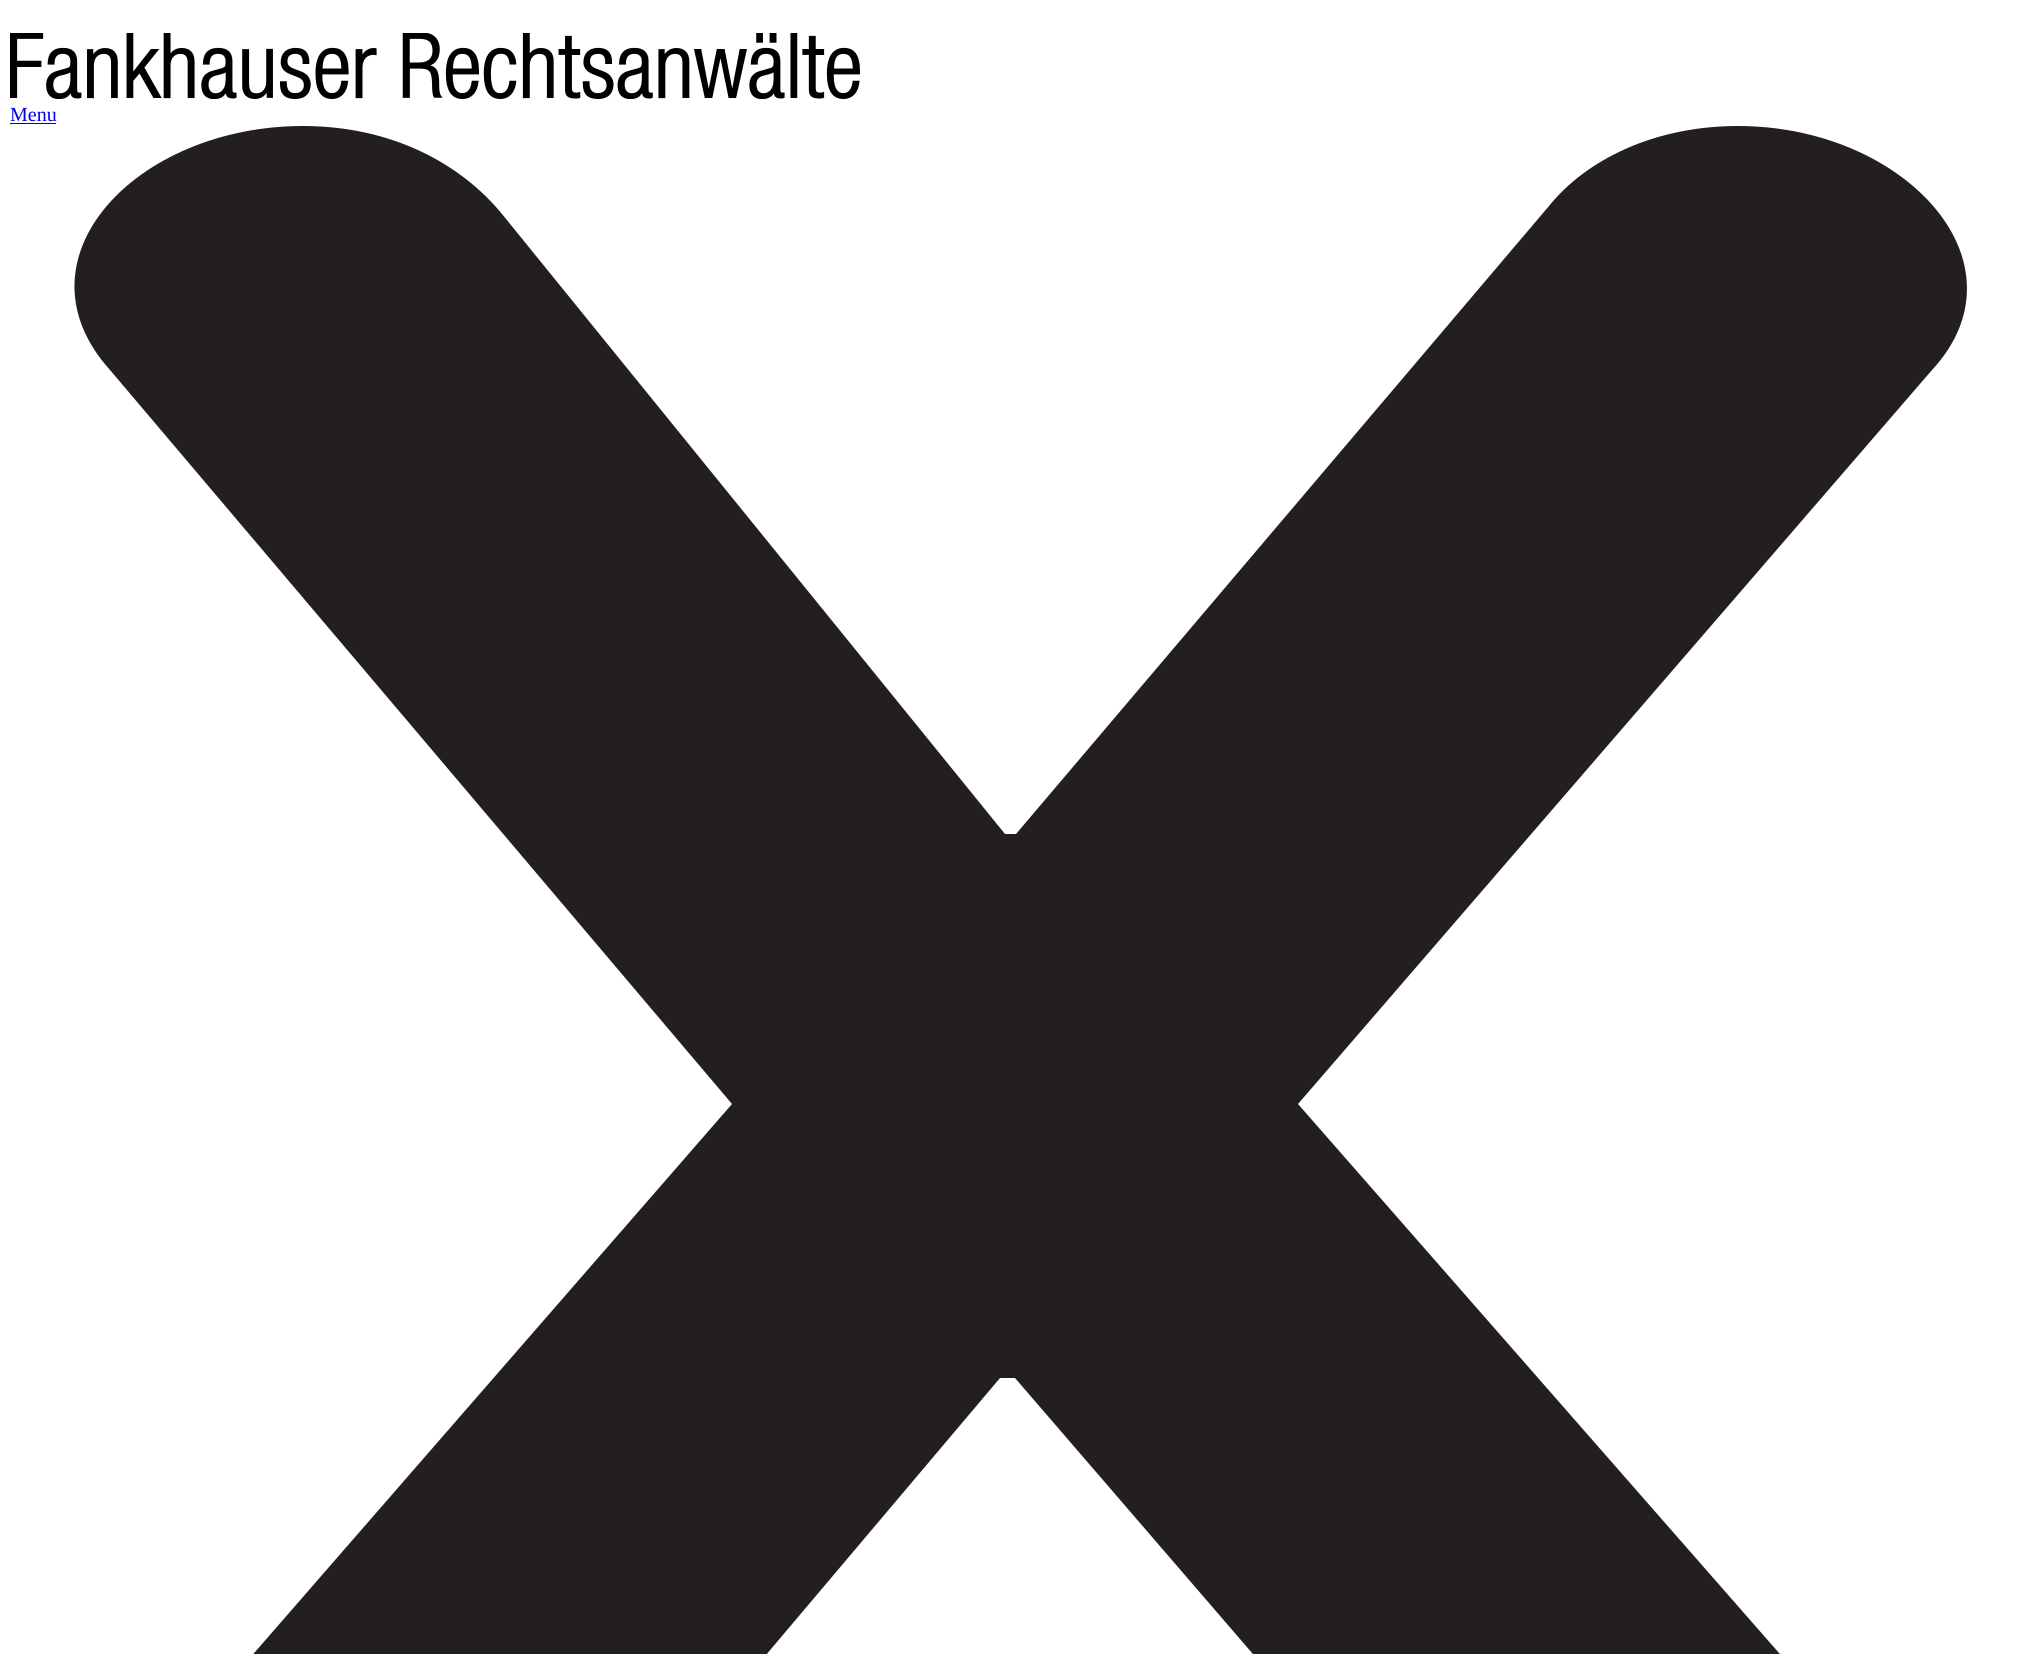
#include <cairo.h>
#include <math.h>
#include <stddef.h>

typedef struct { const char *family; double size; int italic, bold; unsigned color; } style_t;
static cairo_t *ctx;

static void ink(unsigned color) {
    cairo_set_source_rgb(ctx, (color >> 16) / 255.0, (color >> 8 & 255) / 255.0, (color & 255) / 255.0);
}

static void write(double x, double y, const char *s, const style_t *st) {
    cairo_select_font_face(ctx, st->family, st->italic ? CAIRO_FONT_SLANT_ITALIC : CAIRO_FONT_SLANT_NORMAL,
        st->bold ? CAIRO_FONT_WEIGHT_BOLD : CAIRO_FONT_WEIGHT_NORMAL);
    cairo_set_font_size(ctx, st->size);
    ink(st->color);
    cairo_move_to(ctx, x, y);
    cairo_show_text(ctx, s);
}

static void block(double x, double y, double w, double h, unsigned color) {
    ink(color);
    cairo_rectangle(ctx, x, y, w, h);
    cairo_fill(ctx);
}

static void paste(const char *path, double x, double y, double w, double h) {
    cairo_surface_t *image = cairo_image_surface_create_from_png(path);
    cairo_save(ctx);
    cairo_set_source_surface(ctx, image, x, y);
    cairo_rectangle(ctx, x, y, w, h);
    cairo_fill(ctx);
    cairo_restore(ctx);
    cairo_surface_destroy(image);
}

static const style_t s1 = {"Liberation Serif", 20, 0, 0, 0x0000ee};

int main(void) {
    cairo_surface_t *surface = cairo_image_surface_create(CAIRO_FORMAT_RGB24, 2028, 1654);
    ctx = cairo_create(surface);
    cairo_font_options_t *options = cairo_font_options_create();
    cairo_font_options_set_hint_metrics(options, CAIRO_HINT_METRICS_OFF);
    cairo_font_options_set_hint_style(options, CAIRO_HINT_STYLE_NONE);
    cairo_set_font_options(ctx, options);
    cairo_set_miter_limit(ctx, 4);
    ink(0xffffff);
    cairo_paint(ctx);
    paste("pic1.png", 10, 33, 850, 66);
    write(10, 121, "Menu", &s1);
    block(10, 123, 46, 1, 0x0000ee);
    ink(0x231f20);
    cairo_new_path(ctx);
    cairo_move_to(ctx, 47, 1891);
    cairo_line_to(ctx, 732, 1104);
    cairo_line_to(ctx, 110, 370);
    cairo_curve_to(ctx, 10, 259, 136, 126, 303, 126);
    cairo_curve_to(ctx, 392, 126, 461, 164, 502, 214);
    cairo_line_to(ctx, 1005, 834);
    cairo_line_to(ctx, 1016, 834);
    cairo_line_to(ctx, 1549, 206);
    cairo_curve_to(ctx, 1586, 160, 1654, 126, 1738, 126);
    cairo_curve_to(ctx, 1905, 126, 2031, 263, 1932, 370);
    cairo_line_to(ctx, 1298, 1104);
    cairo_line_to(ctx, 1984, 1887);
    cairo_curve_to(ctx, 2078, 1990, 1968, 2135, 1790, 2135);
    cairo_curve_to(ctx, 1711, 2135, 1643, 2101, 1602, 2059);
    cairo_line_to(ctx, 1015, 1378);
    cairo_line_to(ctx, 1000, 1378);
    cairo_line_to(ctx, 428, 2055);
    cairo_curve_to(ctx, 387, 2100, 313, 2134, 235, 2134);
    cairo_curve_to(ctx, 62, 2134, -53, 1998, 46, 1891);
    cairo_close_path(ctx);
    cairo_fill(ctx);
    cairo_surface_write_to_png(surface, "screenshot.png");
    cairo_font_options_destroy(options);
    cairo_destroy(ctx);
    cairo_surface_destroy(surface);
    return 0;
}
